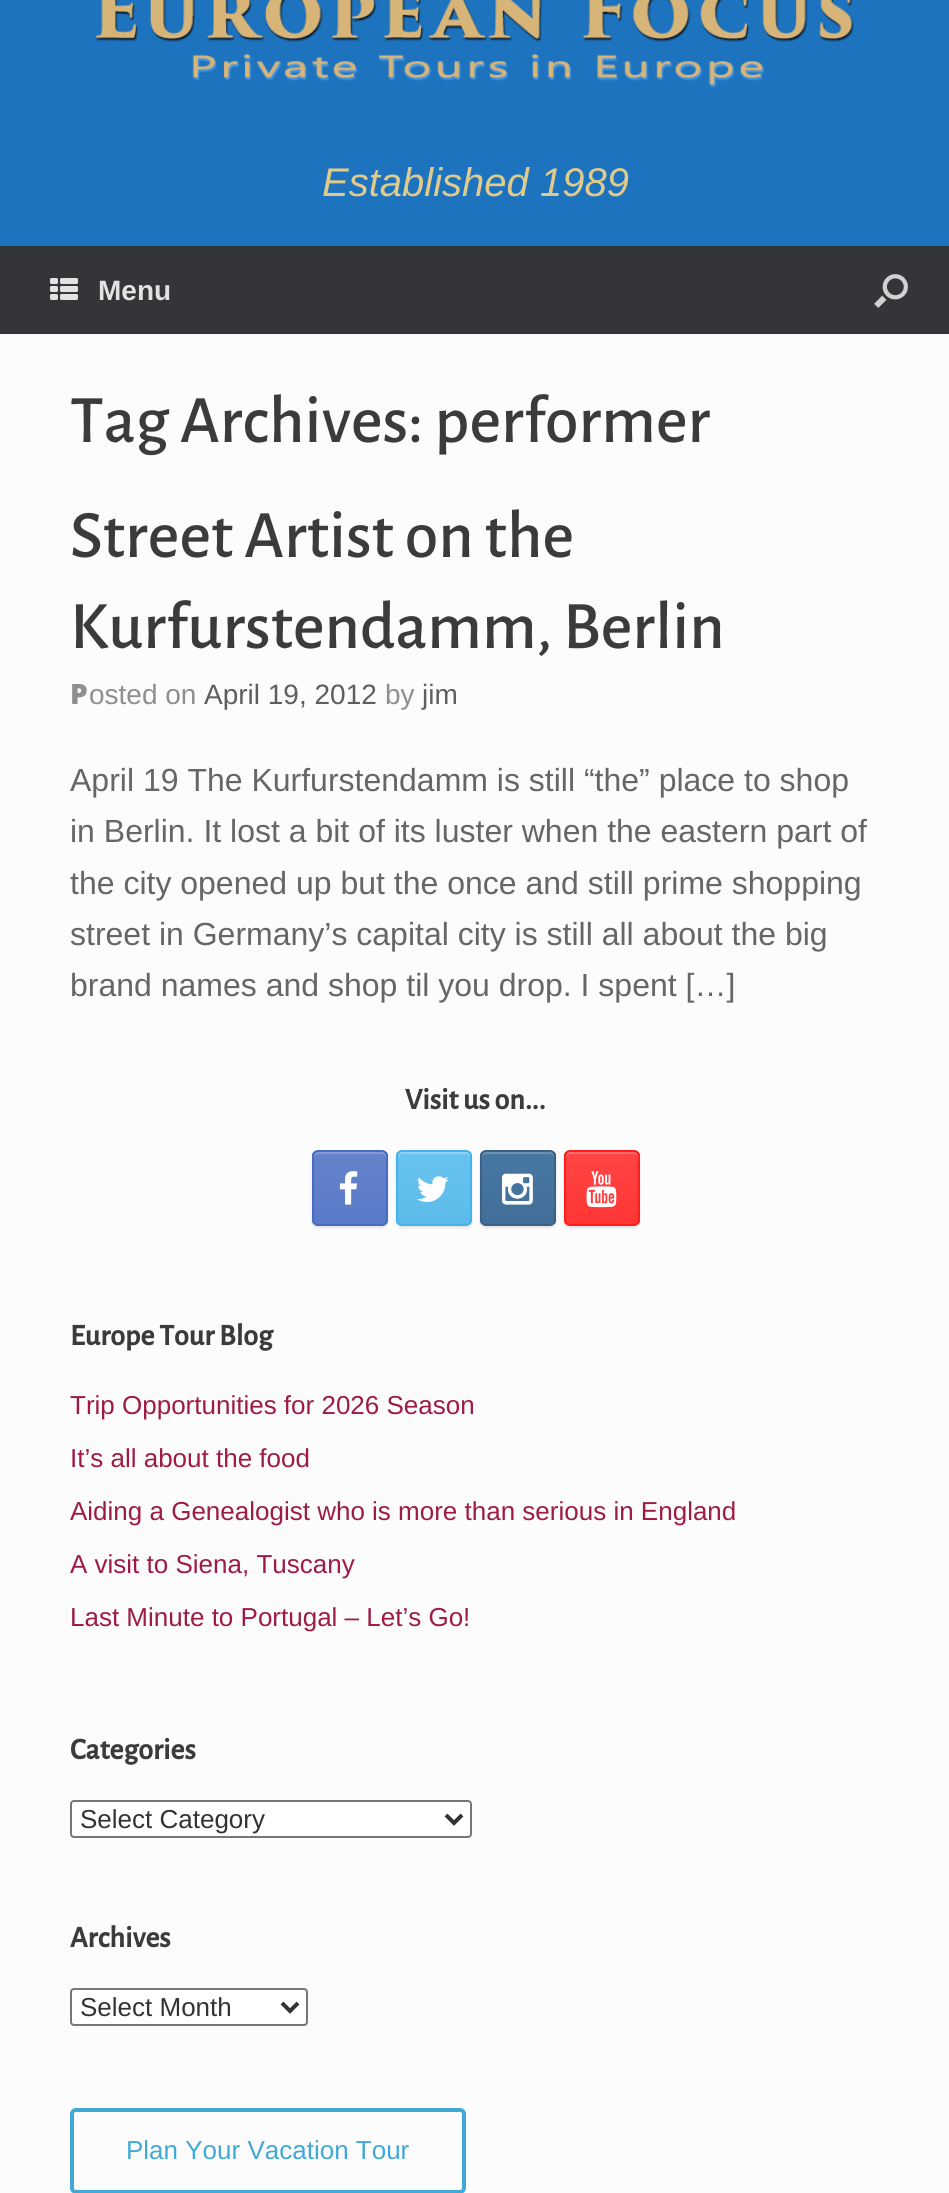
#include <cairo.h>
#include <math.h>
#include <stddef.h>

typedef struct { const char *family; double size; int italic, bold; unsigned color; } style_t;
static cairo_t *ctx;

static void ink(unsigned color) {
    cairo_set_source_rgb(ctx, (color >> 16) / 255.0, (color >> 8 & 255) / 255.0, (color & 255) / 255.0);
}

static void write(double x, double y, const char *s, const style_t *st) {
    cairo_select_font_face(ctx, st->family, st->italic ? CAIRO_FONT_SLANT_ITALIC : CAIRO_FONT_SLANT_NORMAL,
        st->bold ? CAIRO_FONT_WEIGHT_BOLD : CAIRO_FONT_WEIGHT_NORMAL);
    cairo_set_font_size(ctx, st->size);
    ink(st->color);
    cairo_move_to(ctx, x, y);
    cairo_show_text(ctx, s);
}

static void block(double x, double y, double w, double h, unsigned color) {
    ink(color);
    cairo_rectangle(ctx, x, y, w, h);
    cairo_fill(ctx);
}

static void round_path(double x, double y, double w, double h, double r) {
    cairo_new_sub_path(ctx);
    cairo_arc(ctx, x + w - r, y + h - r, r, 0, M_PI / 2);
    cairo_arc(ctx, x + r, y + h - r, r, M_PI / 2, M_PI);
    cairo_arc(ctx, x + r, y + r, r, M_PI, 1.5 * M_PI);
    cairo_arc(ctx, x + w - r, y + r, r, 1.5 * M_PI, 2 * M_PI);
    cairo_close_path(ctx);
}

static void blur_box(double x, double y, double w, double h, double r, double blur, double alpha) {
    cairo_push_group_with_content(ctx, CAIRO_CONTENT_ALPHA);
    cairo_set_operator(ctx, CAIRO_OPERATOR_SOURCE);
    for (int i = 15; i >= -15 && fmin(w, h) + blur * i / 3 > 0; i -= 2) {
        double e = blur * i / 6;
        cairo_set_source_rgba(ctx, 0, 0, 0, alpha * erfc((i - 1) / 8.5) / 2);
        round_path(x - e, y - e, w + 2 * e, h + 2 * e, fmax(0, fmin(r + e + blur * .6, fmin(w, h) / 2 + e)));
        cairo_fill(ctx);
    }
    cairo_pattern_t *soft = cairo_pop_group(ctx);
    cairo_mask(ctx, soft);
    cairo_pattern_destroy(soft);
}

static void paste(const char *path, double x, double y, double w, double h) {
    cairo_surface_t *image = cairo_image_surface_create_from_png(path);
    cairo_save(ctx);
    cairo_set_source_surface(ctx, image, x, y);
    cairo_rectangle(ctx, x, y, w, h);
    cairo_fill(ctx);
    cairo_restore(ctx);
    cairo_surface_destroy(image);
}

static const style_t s1 = {"Liberation Sans", 40, 1, 0, 0xe0cb8b};
static const style_t s2 = {"Liberation Sans", 28, 0, 1, 0xe2e2e2};
static const style_t s3 = {"Alegreya Sans Medium", 68, 0, 0, 0x3b3b3b};
static const style_t s4 = {"Noto Sans Black", 28, 0, 0, 0x8f8f8f};
static const style_t s5 = {"Liberation Sans", 28, 0, 0, 0x8f8f8f};
static const style_t s6 = {"Liberation Sans", 28, 0, 0, 0x5e5e5e};
static const style_t s7 = {"Liberation Sans", 32, 0, 0, 0x666666};
static const style_t s8 = {"Alegreya Sans", 30, 0, 1, 0x3b3b3b};
static const style_t s9 = {"Liberation Sans", 26, 0, 0, 0x9e1c43};
static const style_t s10 = {"Liberation Sans", 26, 0, 0, 0x333333};
static const style_t s11 = {"Liberation Sans", 26, 0, 0, 0x41a9d5};

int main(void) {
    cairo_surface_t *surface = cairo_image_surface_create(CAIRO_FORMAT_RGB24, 949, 2193);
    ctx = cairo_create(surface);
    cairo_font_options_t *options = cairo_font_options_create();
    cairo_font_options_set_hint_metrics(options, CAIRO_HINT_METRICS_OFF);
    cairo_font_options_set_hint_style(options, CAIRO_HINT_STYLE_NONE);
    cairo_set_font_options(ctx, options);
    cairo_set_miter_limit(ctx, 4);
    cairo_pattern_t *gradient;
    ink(0x1e73be);
    cairo_paint(ctx);
    paste("pic1.png", 95, 0, 759, 88);
    write(322, 196, "Established 1989", &s1);
    block(0, 246, 949, 88, 0x343538);
    paste("pic2.png", 50, 278, 28, 22);
    write(98, 300, "Menu", &s2);
    paste("pic3.png", 874, 274, 34, 34);
    block(0, 334, 949, 1859, 0xfcfcfc);
    write(70, 442, "Tag Archives: performer", &s3);
    write(70, 557, "Street Artist on the", &s3);
    write(70, 648, "Kurfurstendamm, Berlin", &s3);
    write(70, 704, "P", &s4);
    write(89, 704, "osted on", &s5);
    write(204, 704, "April 19, 2012", &s6);
    write(385, 704, "by", &s5);
    write(422, 704, "jim", &s6);
    write(70, 791, "April 19 The Kurfurstendamm is still “the” place to shop", &s7);
    write(70, 842, "in Berlin. It lost a bit of its luster when the eastern part of", &s7);
    write(70, 894, "the city opened up but the once and still prime shopping", &s7);
    write(70, 945, "street in Germany’s capital city is still all about the big", &s7);
    write(70, 996, "brand names and shop til you drop. I spent […]", &s7);
    write(405, 1109, "Visit us on...", &s8);
    ink(0x000000);
    blur_box(312, 1152, 76, 76, 6, 1, 0.1);
    cairo_save(ctx);
    round_path(312, 1150, 76, 76, 6);
    cairo_clip(ctx);
    gradient = cairo_pattern_create_linear(314, 1224, 314, 1152);
    cairo_pattern_add_color_stop_rgba(gradient, 0, 0.349, 0.478, 0.78, 1);
    cairo_pattern_add_color_stop_rgba(gradient, 1, 0.392, 0.514, 0.796, 1);
    cairo_set_source(ctx, gradient);
    cairo_pattern_destroy(gradient);
    cairo_rectangle(ctx, 312, 1152, 76, 72);
    cairo_fill(ctx);
    cairo_restore(ctx);
    ink(0x839cd5);
    cairo_new_path(ctx);
    cairo_move_to(ctx, 318, 1154);
    cairo_line_to(ctx, 382, 1154);
    cairo_curve_to(ctx, 384, 1154, 386, 1156, 386, 1158);
    cairo_curve_to(ctx, 386, 1149, 379, 1152, 371, 1152);
    cairo_line_to(ctx, 329, 1152);
    cairo_curve_to(ctx, 321, 1152, 314, 1149, 314, 1158);
    cairo_curve_to(ctx, 314, 1156, 316, 1154, 318, 1154);
    cairo_close_path(ctx);
    cairo_fill(ctx);
    round_path(313, 1151, 74, 74, 5);
    ink(0x466bc1);
    cairo_stroke(ctx);
    paste("pic4.png", 339, 1171, 19, 34);
    ink(0x000000);
    blur_box(396, 1152, 76, 76, 6, 1, 0.1);
    cairo_save(ctx);
    round_path(396, 1150, 76, 76, 6);
    cairo_clip(ctx);
    gradient = cairo_pattern_create_linear(398, 1224, 398, 1152);
    cairo_pattern_add_color_stop_rgba(gradient, 0, 0.357, 0.737, 0.925, 1);
    cairo_pattern_add_color_stop_rgba(gradient, 1, 0.412, 0.761, 0.933, 1);
    cairo_set_source(ctx, gradient);
    cairo_pattern_destroy(gradient);
    cairo_rectangle(ctx, 396, 1152, 76, 72);
    cairo_fill(ctx);
    cairo_restore(ctx);
    ink(0x8ed1f2);
    cairo_new_path(ctx);
    cairo_move_to(ctx, 402, 1154);
    cairo_line_to(ctx, 466, 1154);
    cairo_curve_to(ctx, 468, 1154, 470, 1156, 470, 1158);
    cairo_curve_to(ctx, 470, 1149, 463, 1152, 455, 1152);
    cairo_line_to(ctx, 413, 1152);
    cairo_curve_to(ctx, 405, 1152, 398, 1149, 398, 1158);
    cairo_curve_to(ctx, 398, 1156, 400, 1154, 402, 1154);
    cairo_close_path(ctx);
    cairo_fill(ctx);
    round_path(397, 1151, 74, 74, 5);
    ink(0x44b3e9);
    cairo_stroke(ctx);
    paste("pic5.png", 417, 1176, 32, 26);
    ink(0x000000);
    blur_box(480, 1152, 76, 76, 6, 1, 0.1);
    cairo_save(ctx);
    round_path(480, 1150, 76, 76, 6);
    cairo_clip(ctx);
    gradient = cairo_pattern_create_linear(482, 1224, 482, 1152);
    cairo_pattern_add_color_stop_rgba(gradient, 0, 0.259, 0.435, 0.596, 1);
    cairo_pattern_add_color_stop_rgba(gradient, 1, 0.278, 0.467, 0.639, 1);
    cairo_set_source(ctx, gradient);
    cairo_pattern_destroy(gradient);
    cairo_rectangle(ctx, 480, 1152, 76, 72);
    cairo_fill(ctx);
    cairo_restore(ctx);
    ink(0x6c92b5);
    cairo_new_path(ctx);
    cairo_move_to(ctx, 486, 1154);
    cairo_line_to(ctx, 550, 1154);
    cairo_curve_to(ctx, 552, 1154, 554, 1156, 554, 1158);
    cairo_curve_to(ctx, 554, 1149, 547, 1152, 539, 1152);
    cairo_line_to(ctx, 497, 1152);
    cairo_curve_to(ctx, 489, 1152, 482, 1149, 482, 1158);
    cairo_curve_to(ctx, 482, 1156, 484, 1154, 486, 1154);
    cairo_close_path(ctx);
    cairo_fill(ctx);
    round_path(481, 1151, 74, 74, 5);
    ink(0x3a6286);
    cairo_stroke(ctx);
    paste("pic6.png", 502, 1173, 31, 32);
    ink(0x000000);
    blur_box(564, 1152, 76, 76, 6, 1, 0.1);
    cairo_save(ctx);
    round_path(564, 1150, 76, 76, 6);
    cairo_clip(ctx);
    gradient = cairo_pattern_create_linear(566, 1224, 566, 1152);
    cairo_pattern_add_color_stop_rgba(gradient, 0, 1, 0.212, 0.208, 1);
    cairo_pattern_add_color_stop_rgba(gradient, 1, 1, 0.271, 0.267, 1);
    cairo_set_source(ctx, gradient);
    cairo_pattern_destroy(gradient);
    cairo_rectangle(ctx, 564, 1152, 76, 72);
    cairo_fill(ctx);
    cairo_restore(ctx);
    ink(0xff6a69);
    cairo_new_path(ctx);
    cairo_move_to(ctx, 570, 1154);
    cairo_line_to(ctx, 634, 1154);
    cairo_curve_to(ctx, 636, 1154, 638, 1156, 638, 1158);
    cairo_curve_to(ctx, 638, 1149, 631, 1152, 623, 1152);
    cairo_line_to(ctx, 581, 1152);
    cairo_curve_to(ctx, 573, 1152, 566, 1149, 566, 1158);
    cairo_curve_to(ctx, 566, 1156, 568, 1154, 570, 1154);
    cairo_close_path(ctx);
    cairo_fill(ctx);
    round_path(565, 1151, 74, 74, 5);
    ink(0xff1d1b);
    cairo_stroke(ctx);
    paste("pic7.png", 586, 1171, 31, 37);
    write(70, 1345, "Europe Tour Blog", &s8);
    write(70, 1414, "Trip Opportunities for 2026 Season", &s9);
    write(70, 1467, "It’s all about the food", &s9);
    write(70, 1520, "Aiding a Genealogist who is more than serious in England", &s9);
    write(70, 1573, "A visit to Siena, Tuscany", &s9);
    write(70, 1626, "Last Minute to Portugal – Let’s Go!", &s9);
    write(70, 1759, "Categories", &s8);
    ink(0xffffff);
    round_path(71, 1801, 400, 36, 3);
    cairo_fill_preserve(ctx);
    ink(0x767676);
    cairo_stroke(ctx);
    cairo_new_path(ctx);
    cairo_move_to(ctx, 446, 1815);
    cairo_line_to(ctx, 454, 1823);
    cairo_line_to(ctx, 462, 1815);
    ink(0x333333);
    cairo_set_line_width(ctx, 4);
    cairo_stroke(ctx);
    write(80, 1828, "Select Category", &s10);
    write(70, 1947, "Archives", &s8);
    ink(0xffffff);
    round_path(71, 1989, 236, 36, 3);
    cairo_fill_preserve(ctx);
    ink(0x767676);
    cairo_set_line_width(ctx, 2);
    cairo_stroke(ctx);
    cairo_new_path(ctx);
    cairo_move_to(ctx, 282, 2003);
    cairo_line_to(ctx, 290, 2011);
    cairo_line_to(ctx, 298, 2003);
    ink(0x333333);
    cairo_set_line_width(ctx, 4);
    cairo_stroke(ctx);
    write(80, 2016, "Select Month", &s10);
    round_path(72, 2110, 392, 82, 4);
    ink(0x41a9d5);
    cairo_stroke(ctx);
    write(126, 2159, "Plan Your Vacation Tour", &s11);
    cairo_surface_write_to_png(surface, "screenshot.png");
    cairo_font_options_destroy(options);
    cairo_destroy(ctx);
    cairo_surface_destroy(surface);
    return 0;
}
